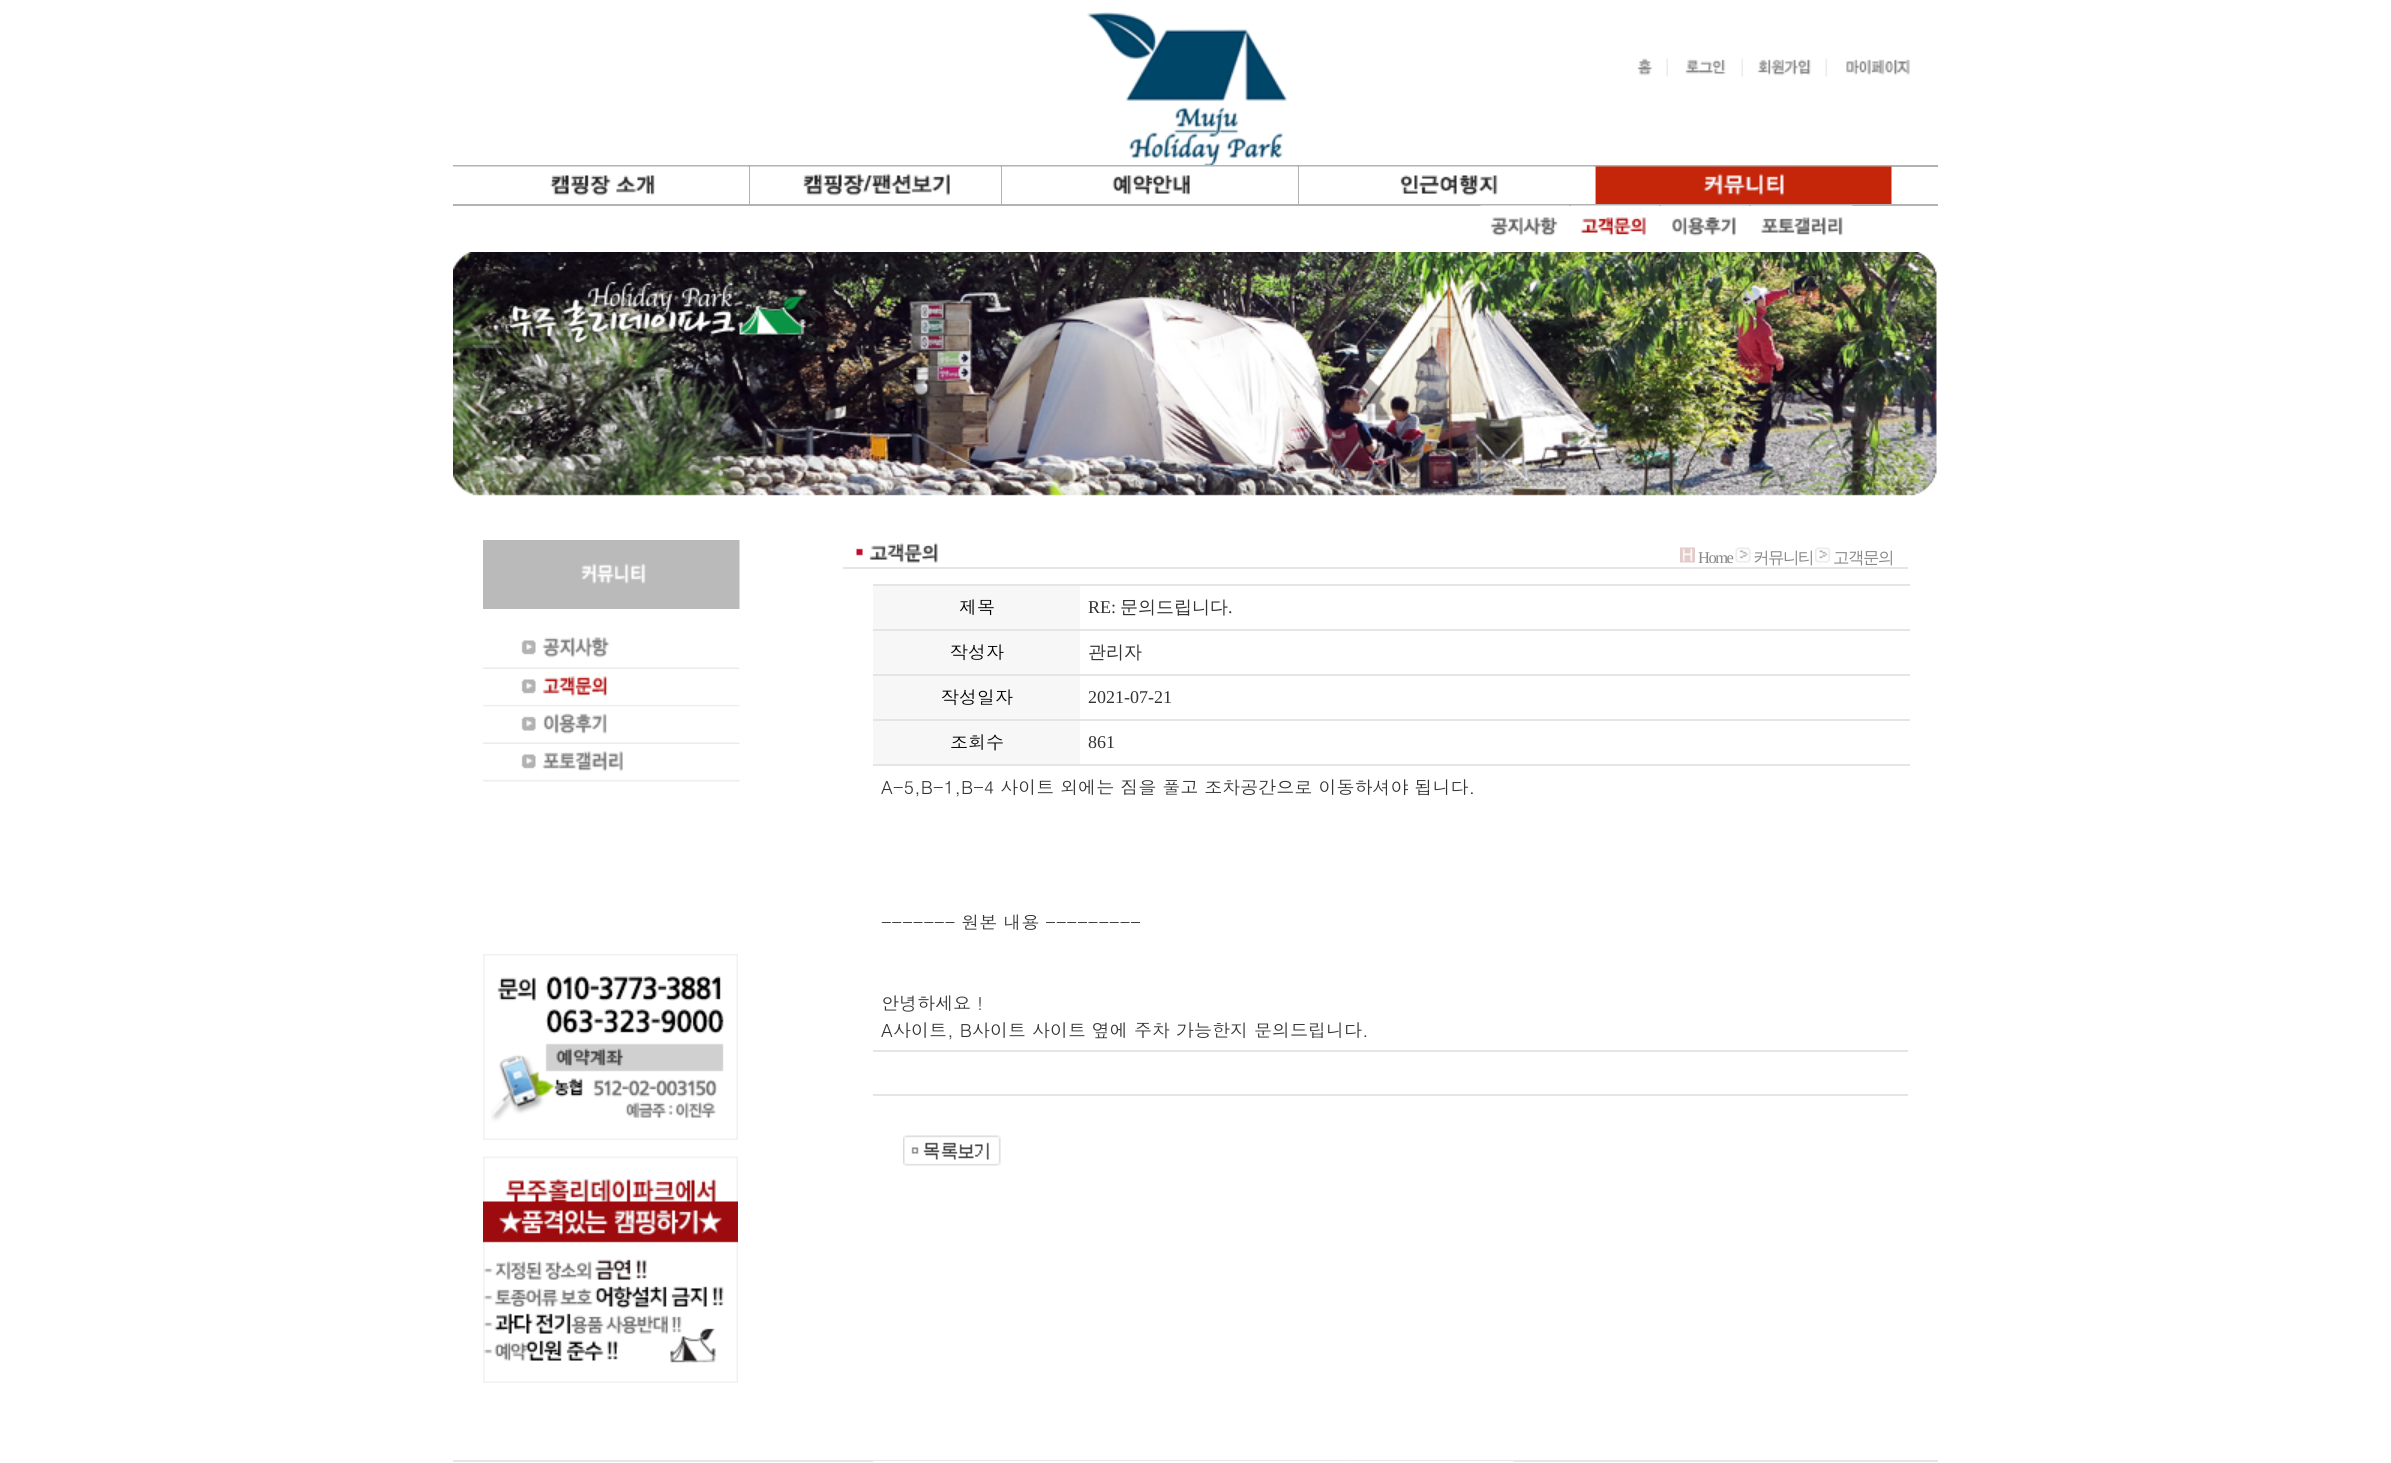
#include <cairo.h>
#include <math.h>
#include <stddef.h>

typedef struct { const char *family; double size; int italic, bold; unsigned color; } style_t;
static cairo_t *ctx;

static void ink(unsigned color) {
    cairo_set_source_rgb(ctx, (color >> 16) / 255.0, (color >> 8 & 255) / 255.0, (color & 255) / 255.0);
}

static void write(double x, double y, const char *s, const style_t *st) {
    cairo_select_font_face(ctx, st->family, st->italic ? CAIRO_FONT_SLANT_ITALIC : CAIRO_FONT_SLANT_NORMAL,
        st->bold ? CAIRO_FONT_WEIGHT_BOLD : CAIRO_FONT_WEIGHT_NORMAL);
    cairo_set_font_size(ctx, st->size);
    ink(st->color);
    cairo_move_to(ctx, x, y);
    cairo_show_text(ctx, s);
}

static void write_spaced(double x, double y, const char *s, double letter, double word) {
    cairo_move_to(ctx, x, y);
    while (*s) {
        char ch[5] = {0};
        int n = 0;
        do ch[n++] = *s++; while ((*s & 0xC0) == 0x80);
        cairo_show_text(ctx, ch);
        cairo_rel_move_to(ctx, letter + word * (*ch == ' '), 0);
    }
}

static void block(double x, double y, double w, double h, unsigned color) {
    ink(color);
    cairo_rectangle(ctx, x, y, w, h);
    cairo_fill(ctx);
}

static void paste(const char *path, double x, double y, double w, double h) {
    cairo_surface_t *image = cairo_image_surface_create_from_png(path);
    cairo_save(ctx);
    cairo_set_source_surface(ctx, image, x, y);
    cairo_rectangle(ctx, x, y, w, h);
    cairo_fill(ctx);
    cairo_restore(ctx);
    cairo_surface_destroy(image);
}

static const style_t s1 = {"Dotum", 18, 0, 0, 0x000000};
static const style_t s2 = {"Liberation Serif", 18, 0, 0, 0x333333};
static const style_t s3 = {"WenQuanYi Zen Hei Medium", 18, 0, 0, 0x333333};
static const style_t s4 = {"Dotum", 18, 0, 0, 0x333333};

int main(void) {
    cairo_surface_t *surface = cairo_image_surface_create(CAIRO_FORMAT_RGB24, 2391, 1463);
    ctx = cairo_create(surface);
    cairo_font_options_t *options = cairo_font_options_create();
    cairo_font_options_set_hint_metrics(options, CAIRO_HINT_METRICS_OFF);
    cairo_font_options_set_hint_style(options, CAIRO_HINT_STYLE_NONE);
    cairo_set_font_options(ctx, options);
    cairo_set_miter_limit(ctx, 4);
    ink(0xffffff);
    cairo_paint(ctx);
    paste("pic1.png", 1087, 12, 201, 153);
    paste("pic2.png", 1637, 58, 31, 19);
    paste("pic3.png", 1685, 58, 58, 19);
    paste("pic4.png", 1757, 58, 70, 19);
    paste("pic5.png", 1846, 59, 64, 17);
    block(453, 165, 1485, 2, 0xb2b2b2);
    block(453, 204, 1485, 2, 0xb2b2b2);
    block(749, 167, 1, 37, 0xb2b2b2);
    paste("pic6.png", 453, 166, 296, 30);
    block(1001, 167, 1, 37, 0xb2b2b2);
    paste("pic7.png", 750, 166, 251, 38);
    block(1298, 167, 1, 37, 0xb2b2b2);
    paste("pic8.png", 1002, 166, 296, 38);
    block(1595, 167, 1, 37, 0xb2b2b2);
    paste("pic9.png", 1299, 166, 296, 38);
    paste("pic10.png", 1596, 166, 296, 38);
    paste("pic11.png", 1480, 205, 89, 31);
    paste("pic12.png", 1570, 205, 89, 31);
    paste("pic13.png", 1660, 205, 89, 31);
    paste("pic14.png", 1750, 205, 103, 31);
    paste("pic15.png", 453, 252, 1485, 244);
    paste("pic16.png", 483, 540, 257, 69);
    paste("pic17.png", 483, 637, 257, 32);
    paste("pic18.png", 483, 676, 257, 31);
    paste("pic19.png", 483, 706, 257, 38);
    paste("pic20.png", 483, 751, 257, 31);
    paste("pic21.png", 483, 954, 255, 186);
    paste("pic22.png", 483, 1156, 255, 227);
    block(843, 567, 1065, 2, 0xe5e5e5);
    paste("pic23.png", 856, 542, 82, 21);
    paste("pic24.png", 1680, 547, 15, 16);
    cairo_select_font_face(ctx, "Liberation Serif", CAIRO_FONT_SLANT_NORMAL, CAIRO_FONT_WEIGHT_NORMAL);
    cairo_set_font_size(ctx, 16.5);
    ink(0x878787);
    write_spaced(1698, 563, "Home", -1.5, 0);
    paste("pic25.png", 1735, 547, 16, 16);
    cairo_select_font_face(ctx, "WenQuanYi Zen Hei Medium", CAIRO_FONT_SLANT_NORMAL, CAIRO_FONT_WEIGHT_NORMAL);
    write_spaced(1753, 563, "커뮤니티", -1.5, 0);
    paste("pic26.png", 1815, 547, 15, 16);
    write_spaced(1833, 563, "고객문의", -1.5, 0);
    block(873, 584, 1037, 2, 0xe5e5e5);
    block(873, 586, 207, 43, 0xf7f7f7);
    write(959, 614, "제목", &s1);
    write(1088, 613, "RE:", &s2);
    write(1120, 613, "문의드립니다", &s3);
    write(1228, 613, ".", &s2);
    block(873, 629, 1037, 2, 0xe5e5e5);
    block(873, 631, 207, 43, 0xf7f7f7);
    write(950, 659, "작성자", &s1);
    write(1088, 658, "관리자", &s3);
    block(873, 674, 1037, 2, 0xe5e5e5);
    block(873, 676, 207, 43, 0xf7f7f7);
    write(941, 704, "작성일자", &s1);
    write(1088, 703, "2021-07-21", &s2);
    block(873, 719, 1037, 2, 0xe5e5e5);
    block(873, 721, 207, 43, 0xf7f7f7);
    write(950, 749, "조회수", &s1);
    write(1088, 748, "861", &s2);
    block(873, 764, 1037, 2, 0xe5e5e5);
    write(881, 794, "A-5,B-1,B-4 사이트 외에는 짐을 풀고 조차공간으로 이동하셔야 됩니다.", &s4);
    write(881, 929, "------- 원본 내용 ---------", &s4);
    write(881, 1010, "안녕하세요 !", &s4);
    write(881, 1037, "A사이트, B사이트 사이트 옆에 주차 가능한지 문의드립니다.", &s4);
    block(873, 1050, 1035, 2, 0xe5e5e5);
    block(873, 1094, 1035, 2, 0xe5e5e5);
    paste("pic27.png", 903, 1135, 98, 31);
    block(453, 1460, 1485, 2, 0xe7e7e7);
    block(873, 1461, 300, 1, 0xffffff);
    paste("pic28.png", 1173, 1461, 176, 1);
    paste("pic29.png", 1348, 1461, 166, 1);
    cairo_surface_write_to_png(surface, "screenshot.png");
    cairo_font_options_destroy(options);
    cairo_destroy(ctx);
    cairo_surface_destroy(surface);
    return 0;
}
